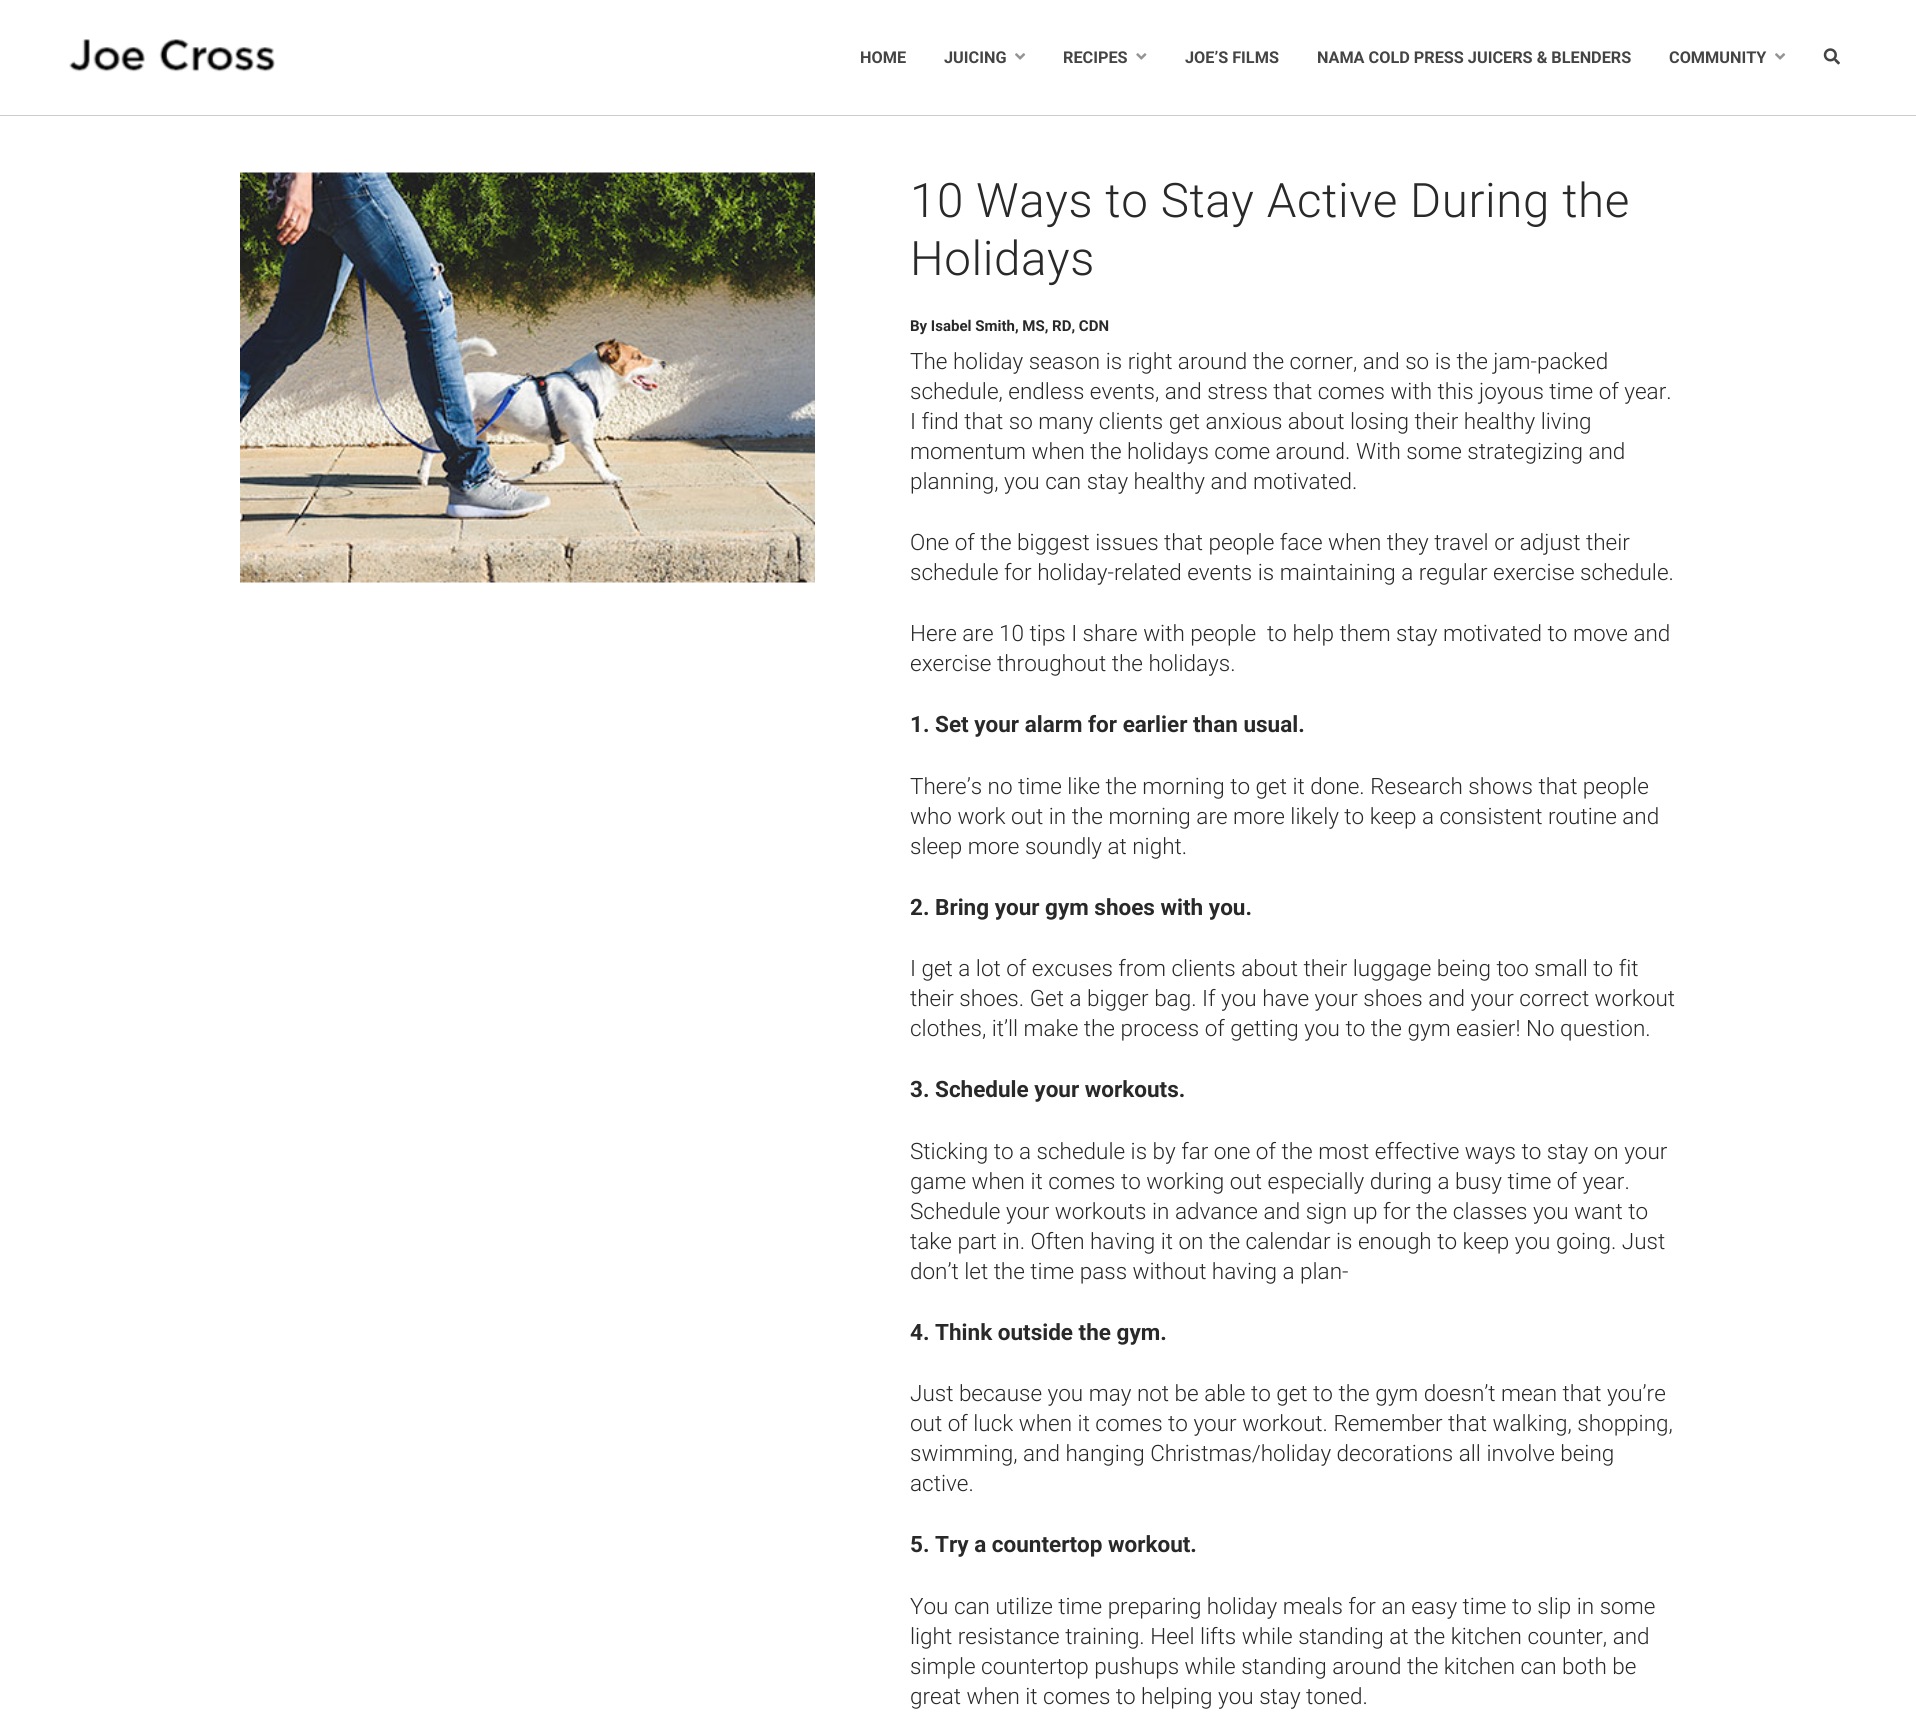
#include <cairo.h>
#include <math.h>
#include <stddef.h>

typedef struct { const char *family; double size; int italic, bold; unsigned color; } style_t;
static cairo_t *ctx;

static void ink(unsigned color) {
    cairo_set_source_rgb(ctx, (color >> 16) / 255.0, (color >> 8 & 255) / 255.0, (color & 255) / 255.0);
}

static void write(double x, double y, const char *s, const style_t *st) {
    cairo_select_font_face(ctx, st->family, st->italic ? CAIRO_FONT_SLANT_ITALIC : CAIRO_FONT_SLANT_NORMAL,
        st->bold ? CAIRO_FONT_WEIGHT_BOLD : CAIRO_FONT_WEIGHT_NORMAL);
    cairo_set_font_size(ctx, st->size);
    ink(st->color);
    cairo_move_to(ctx, x, y);
    cairo_show_text(ctx, s);
}

static void write_spaced(double x, double y, const char *s, double letter, double word) {
    cairo_move_to(ctx, x, y);
    while (*s) {
        char ch[5] = {0};
        int n = 0;
        do ch[n++] = *s++; while ((*s & 0xC0) == 0x80);
        cairo_show_text(ctx, ch);
        cairo_rel_move_to(ctx, letter + word * (*ch == ' '), 0);
    }
}

static void block(double x, double y, double w, double h, unsigned color) {
    ink(color);
    cairo_rectangle(ctx, x, y, w, h);
    cairo_fill(ctx);
}

static void paste(const char *path, double x, double y, double w, double h) {
    cairo_surface_t *image = cairo_image_surface_create_from_png(path);
    cairo_save(ctx);
    cairo_set_source_surface(ctx, image, x, y);
    cairo_rectangle(ctx, x, y, w, h);
    cairo_fill(ctx);
    cairo_restore(ctx);
    cairo_surface_destroy(image);
}

static const style_t s1 = {"Roboto", 16.25, 0, 1, 0x444444};
static const style_t s2 = {"Roboto", 15, 0, 1, 0x292929};
static const style_t s3 = {"Roboto Light", 22.5, 0, 0, 0x292929};
static const style_t s4 = {"Roboto", 22.5, 0, 1, 0x292929};

int main(void) {
    cairo_surface_t *surface = cairo_image_surface_create(CAIRO_FORMAT_RGB24, 1916, 1716);
    ctx = cairo_create(surface);
    cairo_font_options_t *options = cairo_font_options_create();
    cairo_font_options_set_hint_metrics(options, CAIRO_HINT_METRICS_OFF);
    cairo_font_options_set_hint_style(options, CAIRO_HINT_STYLE_NONE);
    cairo_set_font_options(ctx, options);
    cairo_set_miter_limit(ctx, 4);
    ink(0xffffff);
    cairo_paint(ctx);
    block(0, 115, 1916, 1, 0xcccccc);
    paste("pic1.png", 69, 39, 206, 33);
    write(860, 63, "HOME", &s1);
    write(944, 63, "JUICING", &s1);
    paste("pic2.png", 1015, 53, 11, 7);
    write(1063, 63, "RECIPES", &s1);
    paste("pic3.png", 1136, 53, 11, 7);
    write(1185, 63, "JOE’S FILMS", &s1);
    write(1317, 63, "NAMA COLD PRESS JUICERS & BLENDERS", &s1);
    write(1669, 63, "COMMUNITY", &s1);
    paste("pic2.png", 1775, 53, 11, 7);
    paste("pic4.png", 1823, 48, 17, 17);
    paste("pic5.png", 240, 172, 575, 411);
    cairo_select_font_face(ctx, "Roboto Light", CAIRO_FONT_SLANT_NORMAL, CAIRO_FONT_WEIGHT_NORMAL);
    cairo_set_font_size(ctx, 47.5);
    ink(0x292929);
    write_spaced(910, 217, "10 Ways to Stay Active During the", 0.6, 0);
    write_spaced(910, 275, "Holidays", 0.6, 0);
    write(910, 331, "By Isabel Smith, MS, RD, CDN", &s2);
    write(910, 369, "The holiday season is right around the corner, and so is the jam-packed", &s3);
    write(910, 399, "schedule, endless events, and stress that comes with this joyous time of year.", &s3);
    write(910, 429, "I find that so many clients get anxious about losing their healthy living", &s3);
    write(910, 459, "momentum when the holidays come around. With some strategizing and", &s3);
    write(910, 489, "planning, you can stay healthy and motivated.", &s3);
    write(910, 550, "One of the biggest issues that people face when they travel or adjust their", &s3);
    write(910, 580, "schedule for holiday-related events is maintaining a regular exercise schedule.", &s3);
    write(910, 641, "Here are 10 tips I share with people  to help them stay motivated to move and", &s3);
    write(910, 671, "exercise throughout the holidays.", &s3);
    write(910, 732, "1. Set your alarm for earlier than usual.", &s4);
    write(910, 794, "There’s no time like the morning to get it done. Research shows that people", &s3);
    write(910, 824, "who work out in the morning are more likely to keep a consistent routine and", &s3);
    write(910, 854, "sleep more soundly at night.", &s3);
    write(910, 915, "2. Bring your gym shoes with you.", &s4);
    write(910, 976, "I get a lot of excuses from clients about their luggage being too small to fit", &s3);
    write(910, 1006, "their shoes. Get a bigger bag. If you have your shoes and your correct workout", &s3);
    write(910, 1036, "clothes, it’ll make the process of getting you to the gym easier! No question.", &s3);
    write(910, 1097, "3. Schedule your workouts.", &s4);
    write(910, 1159, "Sticking to a schedule is by far one of the most effective ways to stay on your", &s3);
    write(910, 1189, "game when it comes to working out especially during a busy time of year.", &s3);
    write(910, 1219, "Schedule your workouts in advance and sign up for the classes you want to", &s3);
    write(910, 1249, "take part in. Often having it on the calendar is enough to keep you going. Just", &s3);
    write(910, 1279, "don’t let the time pass without having a plan-", &s3);
    write(910, 1340, "4. Think outside the gym.", &s4);
    write(910, 1401, "Just because you may not be able to get to the gym doesn’t mean that you’re", &s3);
    write(910, 1431, "out of luck when it comes to your workout. Remember that walking, shopping,", &s3);
    write(910, 1461, "swimming, and hanging Christmas/holiday decorations all involve being", &s3);
    write(910, 1491, "active.", &s3);
    write(910, 1552, "5. Try a countertop workout.", &s4);
    write(910, 1614, "You can utilize time preparing holiday meals for an easy time to slip in some", &s3);
    write(910, 1644, "light resistance training. Heel lifts while standing at the kitchen counter, and", &s3);
    write(910, 1674, "simple countertop pushups while standing around the kitchen can both be", &s3);
    write(910, 1704, "great when it comes to helping you stay toned.", &s3);
    cairo_surface_write_to_png(surface, "screenshot.png");
    cairo_font_options_destroy(options);
    cairo_destroy(ctx);
    cairo_surface_destroy(surface);
    return 0;
}
